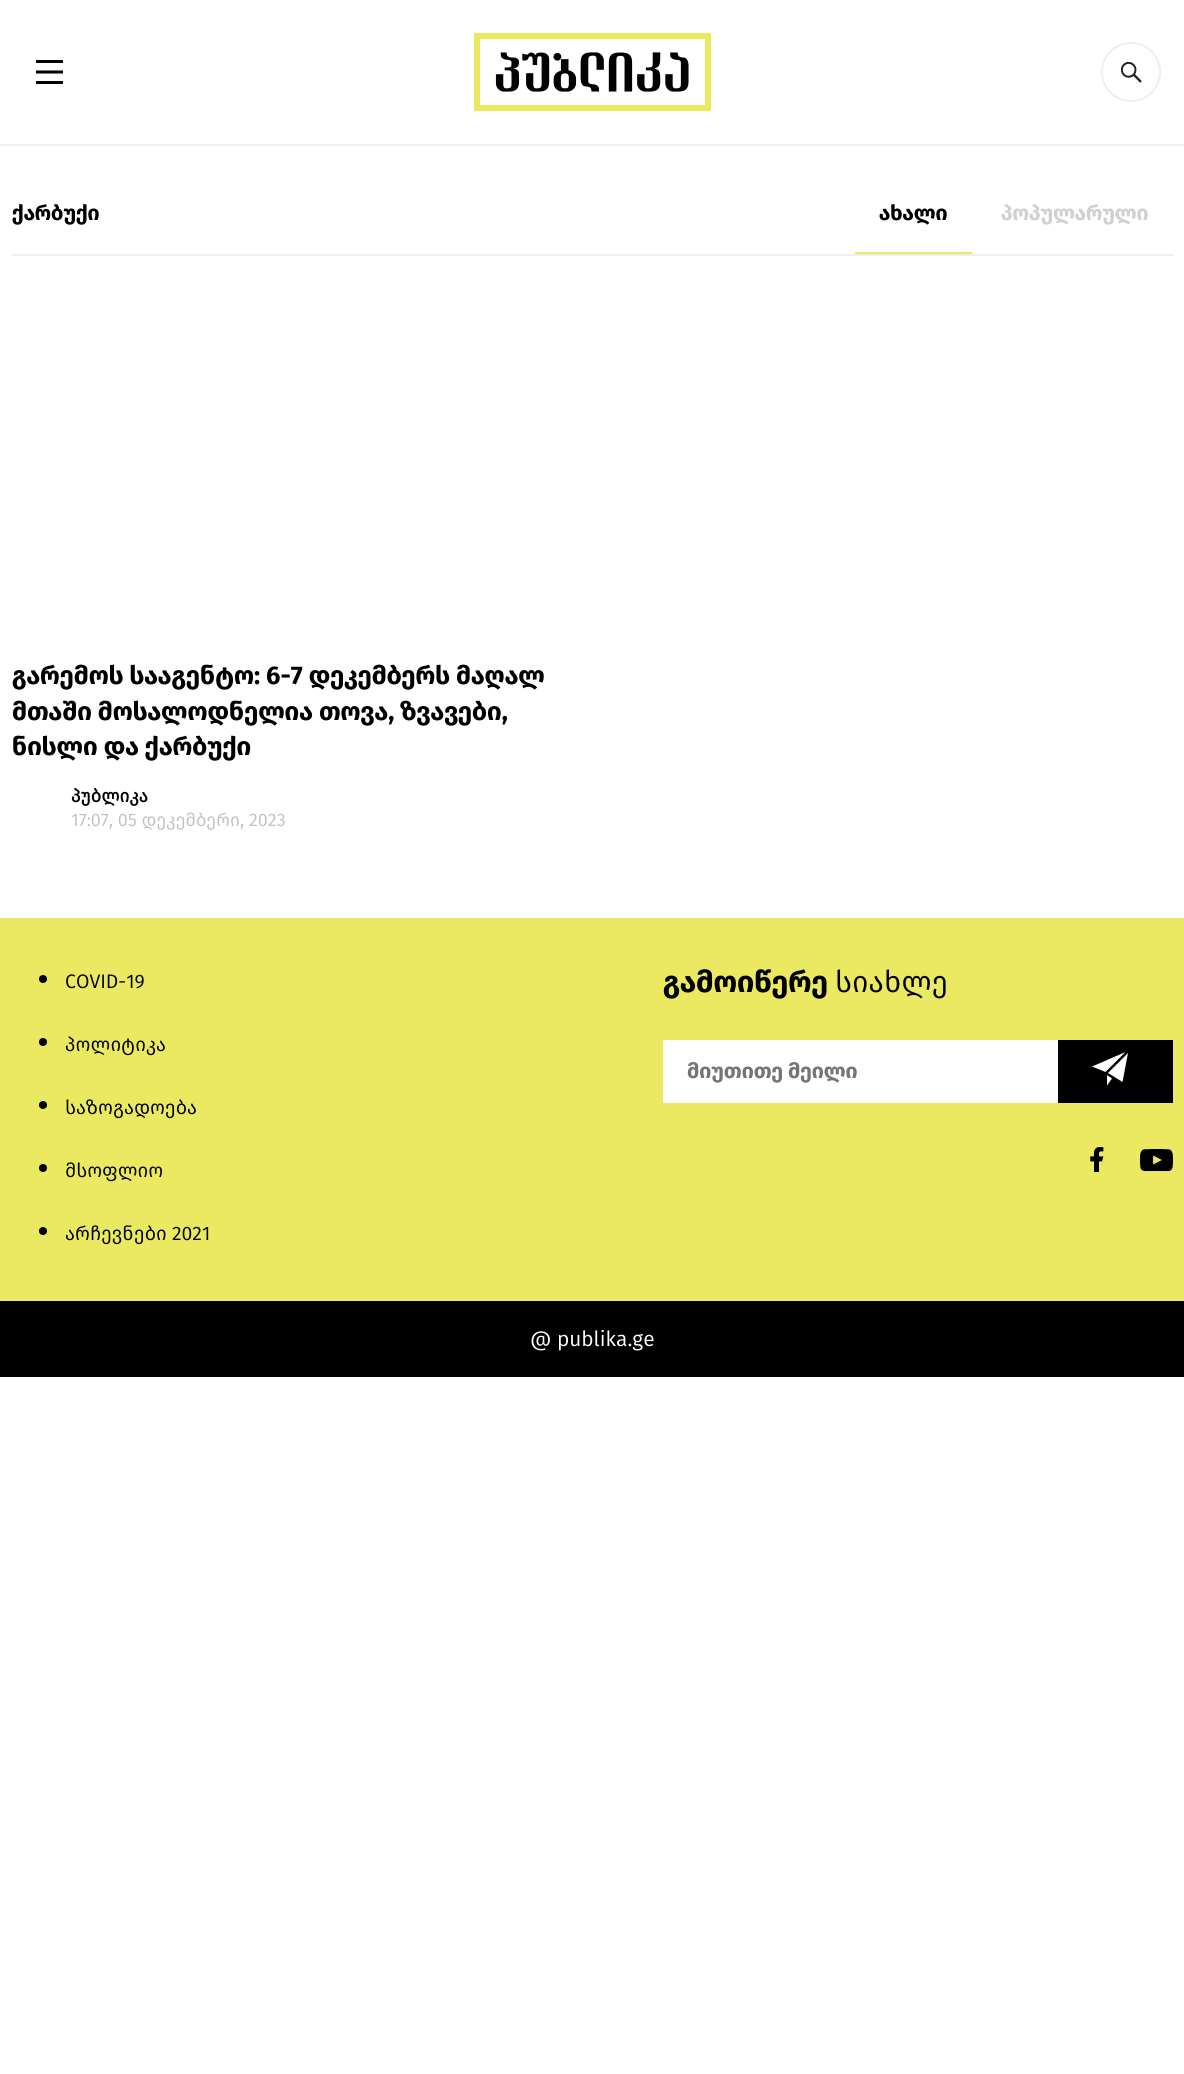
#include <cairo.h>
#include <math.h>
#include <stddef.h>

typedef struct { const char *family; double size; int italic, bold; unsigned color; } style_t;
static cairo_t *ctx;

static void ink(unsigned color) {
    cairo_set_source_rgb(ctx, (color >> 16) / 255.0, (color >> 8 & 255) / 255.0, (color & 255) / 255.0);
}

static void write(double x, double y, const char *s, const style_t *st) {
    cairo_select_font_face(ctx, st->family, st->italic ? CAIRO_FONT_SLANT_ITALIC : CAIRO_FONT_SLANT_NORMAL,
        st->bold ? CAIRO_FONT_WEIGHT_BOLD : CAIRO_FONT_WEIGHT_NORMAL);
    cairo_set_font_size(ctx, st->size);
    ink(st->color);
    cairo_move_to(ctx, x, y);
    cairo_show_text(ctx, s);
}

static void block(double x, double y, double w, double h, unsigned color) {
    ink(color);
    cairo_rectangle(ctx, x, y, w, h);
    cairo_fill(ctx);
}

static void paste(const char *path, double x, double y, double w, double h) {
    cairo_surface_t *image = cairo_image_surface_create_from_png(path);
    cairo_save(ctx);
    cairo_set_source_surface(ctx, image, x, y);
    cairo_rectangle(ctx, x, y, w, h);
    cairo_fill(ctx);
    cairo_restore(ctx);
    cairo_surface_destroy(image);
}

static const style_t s1 = {"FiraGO", 21, 0, 1, 0x000000};
static const style_t s2 = {"FiraGO", 21, 0, 1, 0xd0d0d0};
static const style_t s3 = {"FiraGO", 25.5, 0, 1, 0x000000};
static const style_t s4 = {"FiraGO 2", 18, 0, 1, 0x000000};
static const style_t s5 = {"FiraGO", 18, 0, 0, 0xc1c1c1};
static const style_t s6 = {"FiraGO", 19.5, 0, 0, 0x000000};
static const style_t s7 = {"FiraGO", 30, 0, 1, 0x000000};
static const style_t s8 = {"FiraGO", 30, 0, 0, 0x000000};
static const style_t s9 = {"FiraGO", 21, 0, 1, 0x757575};
static const style_t s10 = {"FiraGO", 21, 0, 0, 0xffffff};

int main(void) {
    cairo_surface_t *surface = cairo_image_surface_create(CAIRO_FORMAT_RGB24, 1184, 2074);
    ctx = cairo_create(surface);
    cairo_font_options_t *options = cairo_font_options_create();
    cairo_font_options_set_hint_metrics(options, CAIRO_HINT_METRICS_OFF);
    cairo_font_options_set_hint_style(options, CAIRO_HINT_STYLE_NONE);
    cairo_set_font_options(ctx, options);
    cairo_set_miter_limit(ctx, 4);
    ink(0xffffff);
    cairo_paint(ctx);
    block(0, 144, 1184, 2, 0xefefef);
    paste("pic1.png", 36, 60, 27, 24);
    cairo_rectangle(ctx, 477, 36, 231, 72);
    ink(0xebe962);
    cairo_set_line_width(ctx, 6);
    cairo_stroke(ctx);
    paste("pic2.png", 495, 52, 194, 40);
    cairo_arc(ctx, 1131, 72, 29, 0, 2 * M_PI);
    ink(0xefefef);
    cairo_set_line_width(ctx, 2);
    cairo_stroke(ctx);
    paste("pic3.png", 1121, 62, 21, 21);
    block(12, 254, 1161, 2, 0xefefef);
    write(12, 220, "ქარბუქი", &s1);
    block(855, 252, 117, 2, 0xebe962);
    write(879, 220, "ახალი", &s1);
    write(1001, 220, "პოპულარული", &s2);
    write(12, 684, "გარემოს სააგენტო: 6-7 დეკემბერს მაღალ", &s3);
    write(12, 720, "მთაში მოსალოდნელია თოვა, ზვავები,", &s3);
    write(12, 755, "ნისლი და ქარბუქი", &s3);
    write(71, 802, "პუბლიკა", &s4);
    write(71, 826, "17:07, 05 დეკემბერი, 2023", &s5);
    block(0, 918, 1184, 383, 0xebe962);
    ink(0x000000);
    cairo_new_path(ctx);
    cairo_arc(ctx, 43, 979, 4, 0, 2 * M_PI);
    cairo_fill(ctx);
    write(65, 988, "COVID-19", &s6);
    cairo_new_path(ctx);
    cairo_arc(ctx, 43, 1042, 4, 0, 2 * M_PI);
    cairo_fill(ctx);
    write(65, 1051, "პოლიტიკა", &s6);
    cairo_new_path(ctx);
    cairo_arc(ctx, 43, 1105, 4, 0, 2 * M_PI);
    cairo_fill(ctx);
    write(65, 1114, "საზოგადოება", &s6);
    cairo_new_path(ctx);
    cairo_arc(ctx, 43, 1168, 4, 0, 2 * M_PI);
    cairo_fill(ctx);
    write(65, 1177, "მსოფლიო", &s6);
    cairo_new_path(ctx);
    cairo_arc(ctx, 43, 1231, 4, 0, 2 * M_PI);
    cairo_fill(ctx);
    write(65, 1240, "არჩევნები 2021", &s6);
    write(663, 992, "გამოიწერე", &s7);
    write(835, 992, "სიახლე", &s8);
    block(663, 1040, 395, 63, 0xffffff);
    write(687, 1078, "მიუთითე მეილი", &s9);
    block(1058, 1040, 115, 63, 0x000000);
    ink(0xffffff);
    cairo_set_fill_rule(ctx, CAIRO_FILL_RULE_EVEN_ODD);
    cairo_new_path(ctx);
    cairo_move_to(ctx, 1105.5, 1072);
    cairo_line_to(ctx, 1092, 1066.5);
    cairo_line_to(ctx, 1125.5, 1052);
    cairo_close_path(ctx);
    cairo_move_to(ctx, 1122.5, 1082);
    cairo_line_to(ctx, 1108, 1073);
    cairo_line_to(ctx, 1128, 1053);
    cairo_close_path(ctx);
    cairo_fill(ctx);
    cairo_set_fill_rule(ctx, CAIRO_FILL_RULE_WINDING);
    cairo_new_path(ctx);
    cairo_move_to(ctx, 1107, 1085.5);
    cairo_line_to(ctx, 1112, 1078.5);
    cairo_line_to(ctx, 1107, 1075);
    cairo_close_path(ctx);
    cairo_fill(ctx);
    paste("pic4.png", 1090, 1147, 14, 25);
    paste("pic5.png", 1140, 1149, 33, 23);
    block(0, 1301, 1184, 76, 0x000000);
    write(530, 1346, "@ publika.ge", &s10);
    cairo_surface_write_to_png(surface, "screenshot.png");
    cairo_font_options_destroy(options);
    cairo_destroy(ctx);
    cairo_surface_destroy(surface);
    return 0;
}
